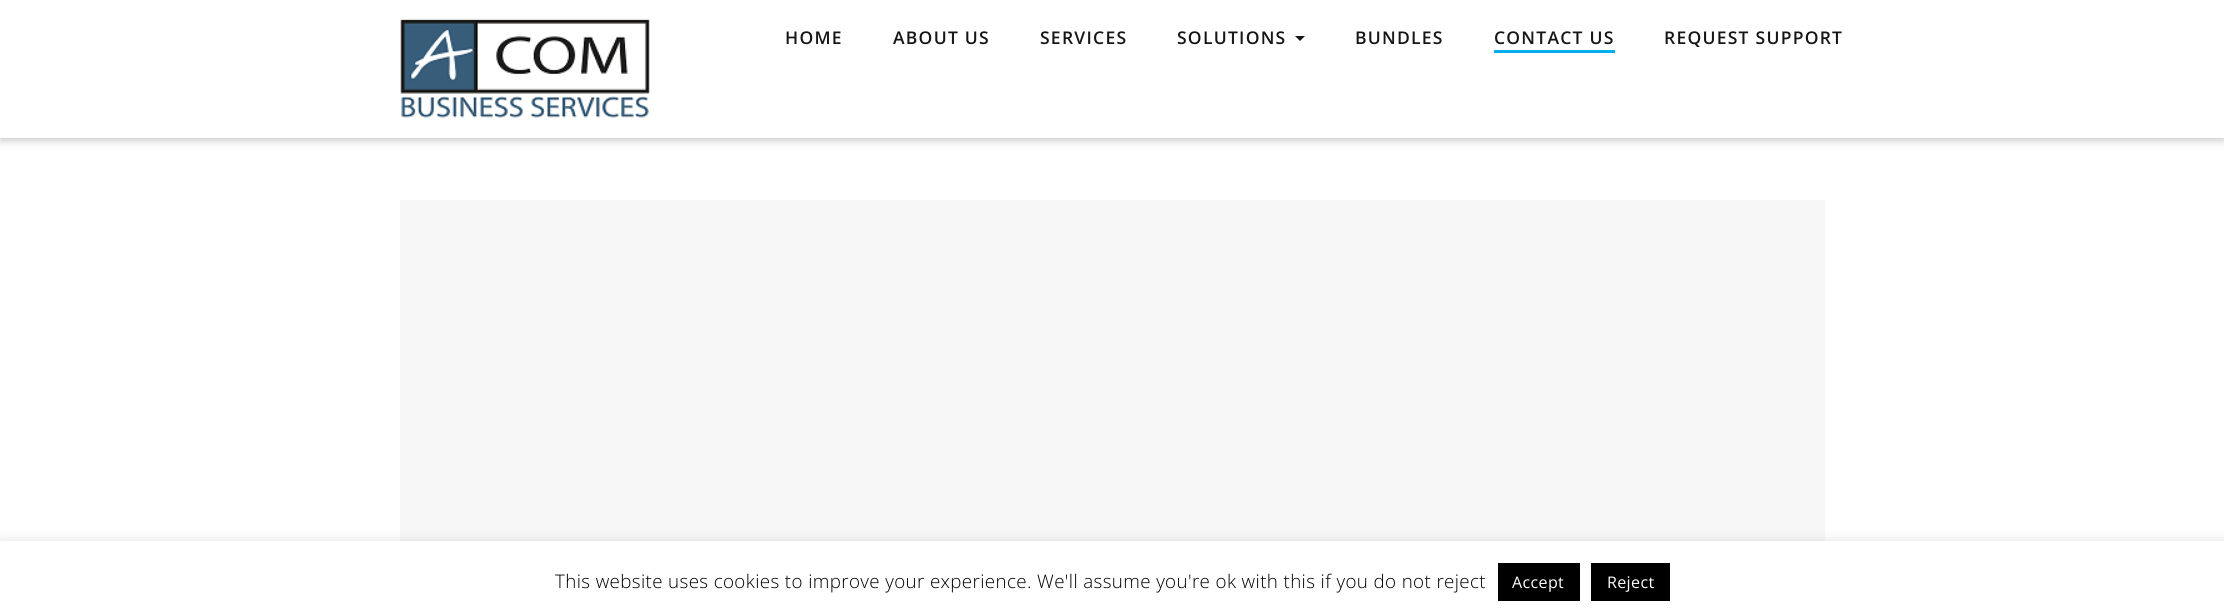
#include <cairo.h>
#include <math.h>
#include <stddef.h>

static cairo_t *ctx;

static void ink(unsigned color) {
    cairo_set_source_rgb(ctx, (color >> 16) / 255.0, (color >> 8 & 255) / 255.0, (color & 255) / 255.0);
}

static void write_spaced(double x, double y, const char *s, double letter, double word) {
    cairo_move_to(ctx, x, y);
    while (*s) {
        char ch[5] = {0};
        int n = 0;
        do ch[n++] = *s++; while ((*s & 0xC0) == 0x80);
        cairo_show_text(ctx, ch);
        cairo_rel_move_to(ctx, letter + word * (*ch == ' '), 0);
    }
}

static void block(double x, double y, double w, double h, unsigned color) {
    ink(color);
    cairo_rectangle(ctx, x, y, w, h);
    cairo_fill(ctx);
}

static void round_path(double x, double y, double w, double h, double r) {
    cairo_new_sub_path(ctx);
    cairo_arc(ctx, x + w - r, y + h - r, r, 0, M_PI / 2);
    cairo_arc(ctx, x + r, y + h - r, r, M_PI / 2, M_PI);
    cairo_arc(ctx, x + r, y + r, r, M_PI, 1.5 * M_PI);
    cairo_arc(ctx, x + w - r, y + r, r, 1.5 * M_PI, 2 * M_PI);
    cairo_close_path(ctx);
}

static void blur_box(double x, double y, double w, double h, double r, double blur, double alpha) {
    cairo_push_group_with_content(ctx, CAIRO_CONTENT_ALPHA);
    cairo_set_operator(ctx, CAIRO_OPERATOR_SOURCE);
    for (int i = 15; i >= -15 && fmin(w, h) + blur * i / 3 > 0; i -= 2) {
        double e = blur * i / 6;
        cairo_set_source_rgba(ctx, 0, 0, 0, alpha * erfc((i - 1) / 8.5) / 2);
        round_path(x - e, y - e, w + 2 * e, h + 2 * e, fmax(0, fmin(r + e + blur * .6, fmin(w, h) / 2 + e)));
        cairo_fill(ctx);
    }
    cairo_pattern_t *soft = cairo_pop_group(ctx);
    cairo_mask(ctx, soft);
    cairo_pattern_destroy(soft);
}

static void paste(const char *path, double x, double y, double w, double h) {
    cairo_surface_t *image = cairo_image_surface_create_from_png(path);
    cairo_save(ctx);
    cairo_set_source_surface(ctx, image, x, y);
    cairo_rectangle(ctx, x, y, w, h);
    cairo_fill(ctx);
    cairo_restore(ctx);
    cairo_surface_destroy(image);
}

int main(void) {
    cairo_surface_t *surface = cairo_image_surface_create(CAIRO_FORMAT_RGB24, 2224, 616);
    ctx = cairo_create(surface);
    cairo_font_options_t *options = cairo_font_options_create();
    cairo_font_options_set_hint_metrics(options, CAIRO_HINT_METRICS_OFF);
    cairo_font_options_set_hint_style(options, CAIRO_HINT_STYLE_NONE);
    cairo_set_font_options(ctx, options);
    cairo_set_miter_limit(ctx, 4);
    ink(0xffffff);
    cairo_paint(ctx);
    ink(0x000000);
    blur_box(0, 4, 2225, 137, 0, 4, 0.2);
    block(0, 0, 2224, 138, 0xffffff);
    paste("pic1.png", 400, 18, 250, 100);
    cairo_select_font_face(ctx, "Open Sans SemiBold", CAIRO_FONT_SLANT_NORMAL, CAIRO_FONT_WEIGHT_NORMAL);
    cairo_set_font_size(ctx, 17.5);
    ink(0x161616);
    write_spaced(785, 44, "HOME", 1.25, 0);
    write_spaced(893, 44, "ABOUT US", 1.25, 0);
    write_spaced(1040, 44, "SERVICES", 1.25, 0);
    write_spaced(1177, 44, "SOLUTIONS", 1.25, 0);
    cairo_new_path(ctx);
    cairo_move_to(ctx, 1295, 36);
    cairo_line_to(ctx, 1305, 36);
    cairo_line_to(ctx, 1300, 41);
    cairo_close_path(ctx);
    cairo_fill(ctx);
    write_spaced(1355, 44, "BUNDLES", 1.25, 0);
    block(1494, 50, 121, 3, 0x00aded);
    ink(0x161616);
    write_spaced(1494, 44, "CONTACT US", 1.25, 0);
    write_spaced(1664, 44, "REQUEST SUPPORT", 1.25, 0);
    block(400, 200, 1425, 341, 0xf7f7f7);
    ink(0xacabab);
    blur_box(0, 540, 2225, 75, 0, 6, 0.3);
    block(0, 541, 2224, 75, 0xffffff);
    cairo_select_font_face(ctx, "Open Sans Light", CAIRO_FONT_SLANT_NORMAL, CAIRO_FONT_WEIGHT_NORMAL);
    cairo_set_font_size(ctx, 18.75);
    ink(0x000000);
    write_spaced(555, 588, "This website uses cookies to improve your experience. We'll assume you're ok with this if you do not reject", 0.38, 0);
    block(1498, 563, 82, 38, 0x000000);
    cairo_select_font_face(ctx, "Open Sans", CAIRO_FONT_SLANT_NORMAL, CAIRO_FONT_WEIGHT_NORMAL);
    cairo_set_font_size(ctx, 16);
    ink(0xffffff);
    write_spaced(1512, 588, "Accept", 0.38, 0);
    block(1591, 563, 79, 38, 0x000000);
    ink(0xffffff);
    write_spaced(1607, 588, "Reject", 0.38, 0);
    cairo_surface_write_to_png(surface, "screenshot.png");
    cairo_font_options_destroy(options);
    cairo_destroy(ctx);
    cairo_surface_destroy(surface);
    return 0;
}
